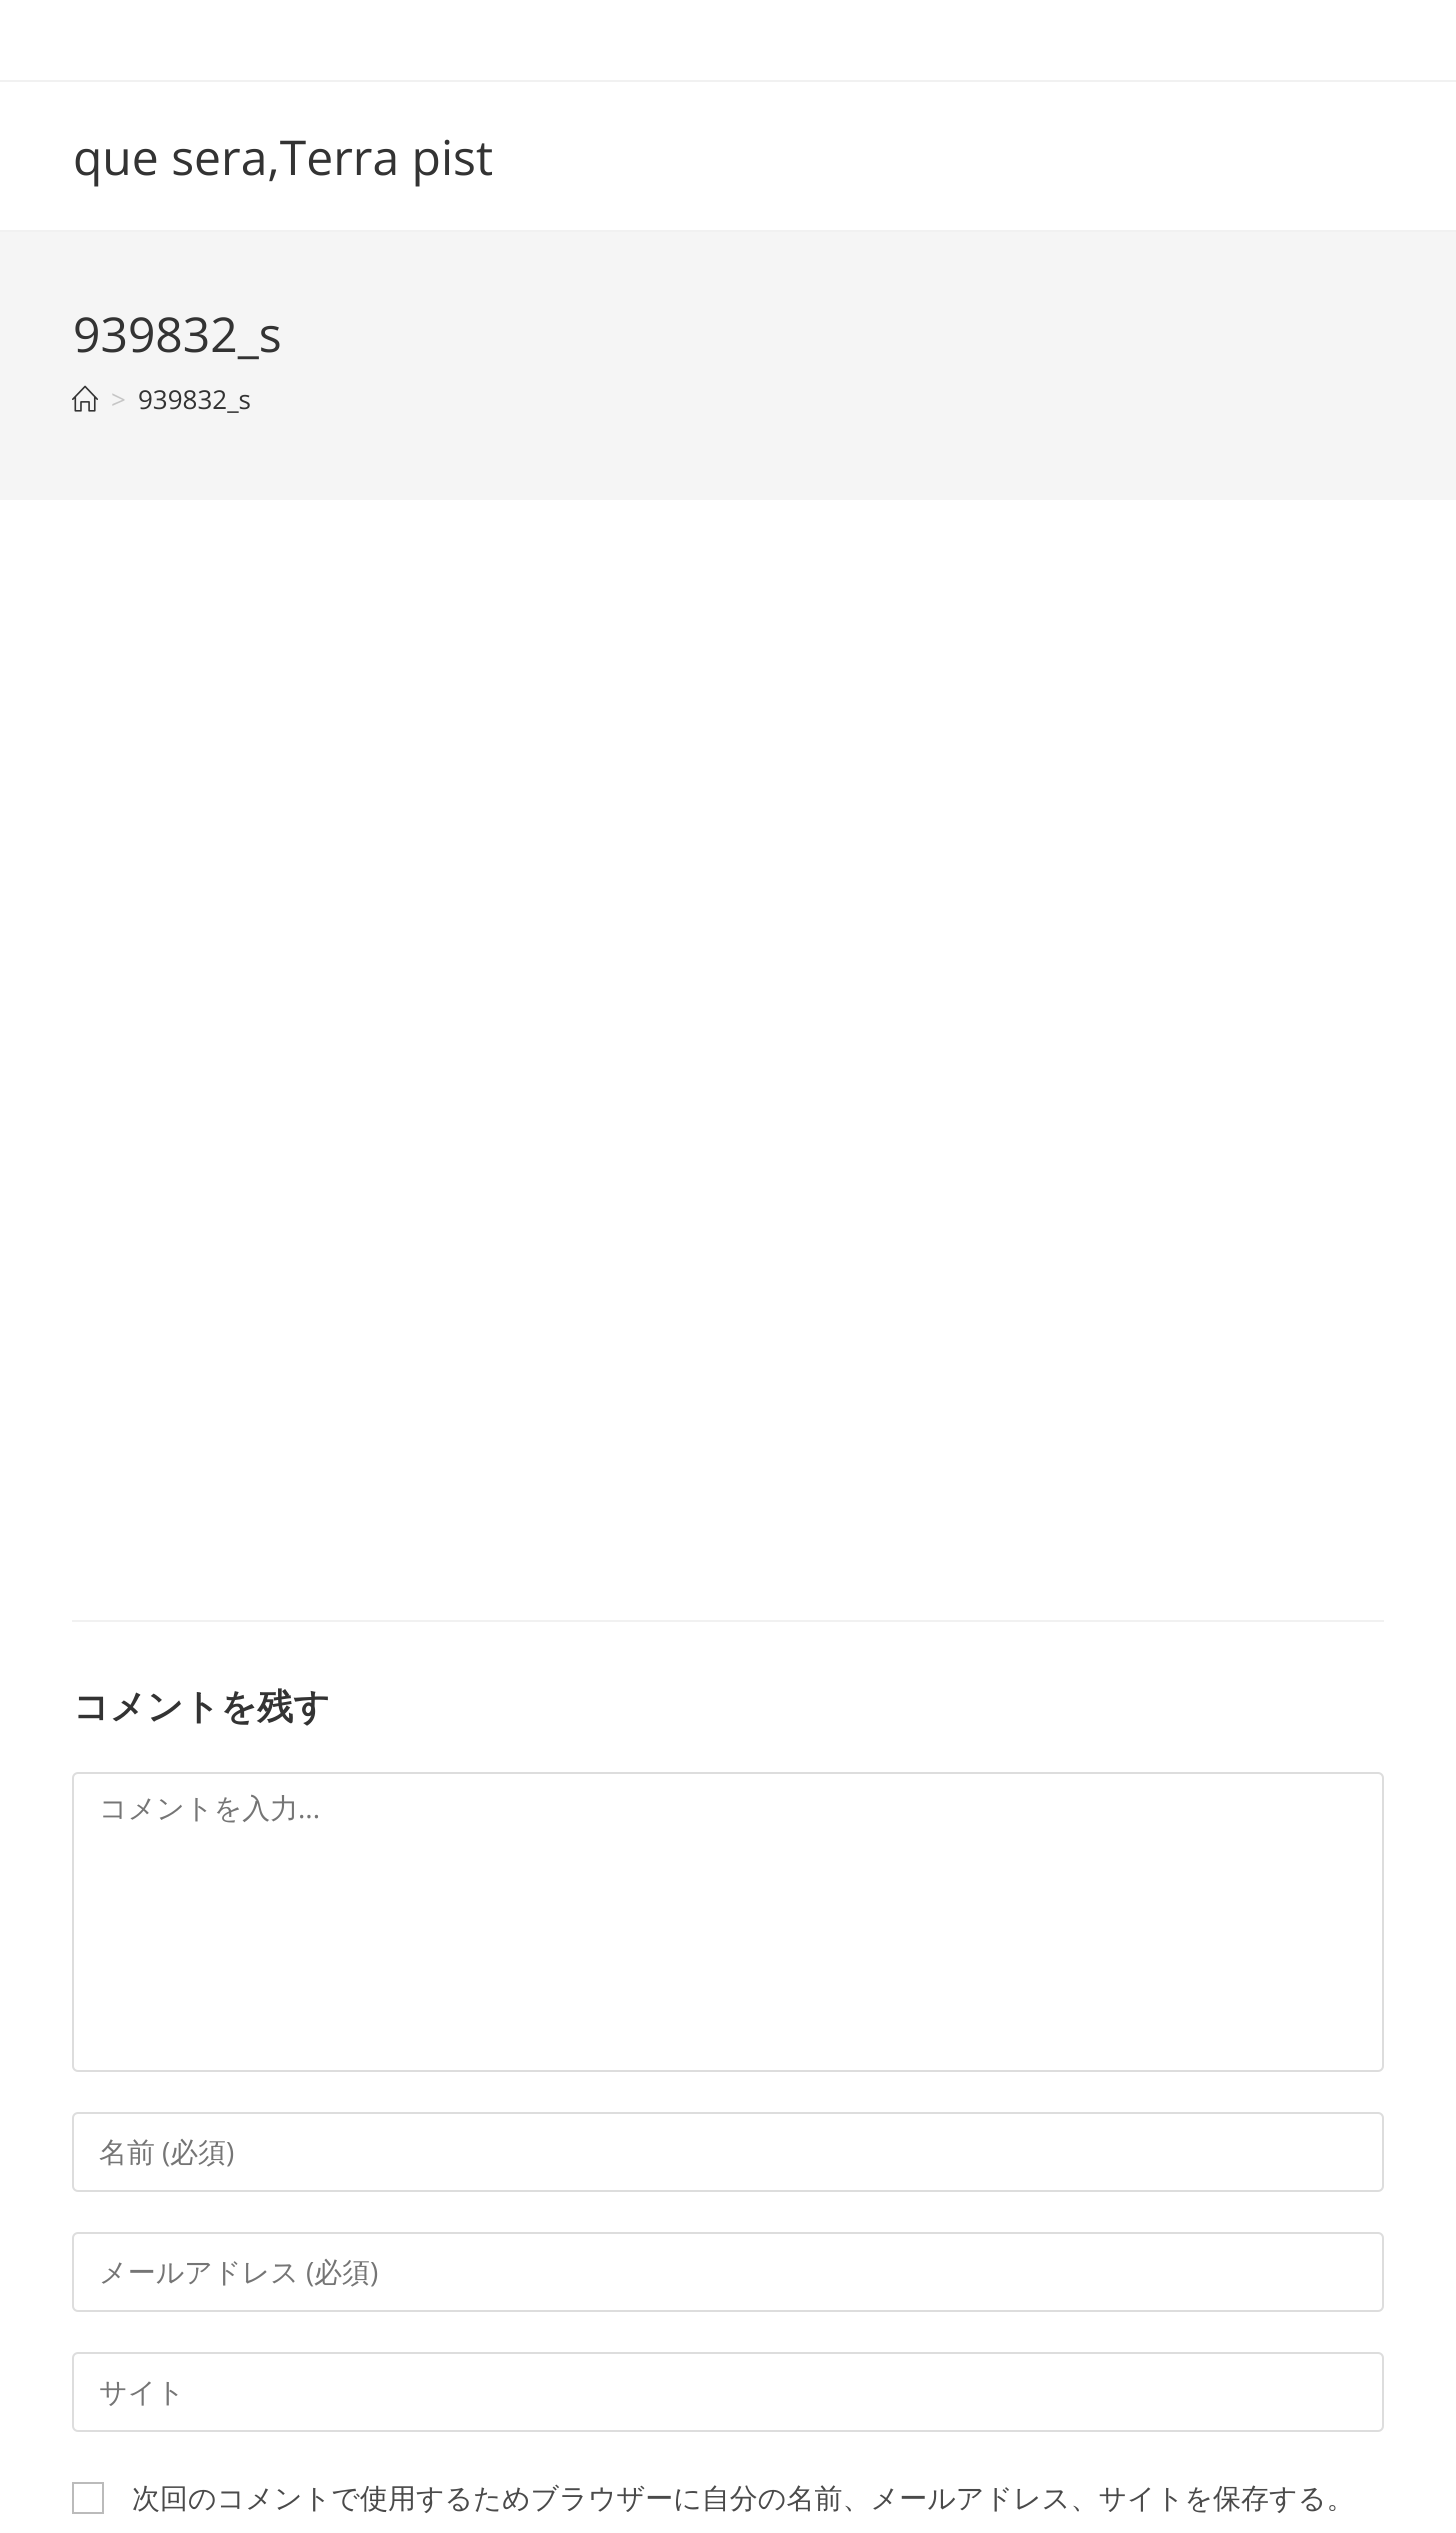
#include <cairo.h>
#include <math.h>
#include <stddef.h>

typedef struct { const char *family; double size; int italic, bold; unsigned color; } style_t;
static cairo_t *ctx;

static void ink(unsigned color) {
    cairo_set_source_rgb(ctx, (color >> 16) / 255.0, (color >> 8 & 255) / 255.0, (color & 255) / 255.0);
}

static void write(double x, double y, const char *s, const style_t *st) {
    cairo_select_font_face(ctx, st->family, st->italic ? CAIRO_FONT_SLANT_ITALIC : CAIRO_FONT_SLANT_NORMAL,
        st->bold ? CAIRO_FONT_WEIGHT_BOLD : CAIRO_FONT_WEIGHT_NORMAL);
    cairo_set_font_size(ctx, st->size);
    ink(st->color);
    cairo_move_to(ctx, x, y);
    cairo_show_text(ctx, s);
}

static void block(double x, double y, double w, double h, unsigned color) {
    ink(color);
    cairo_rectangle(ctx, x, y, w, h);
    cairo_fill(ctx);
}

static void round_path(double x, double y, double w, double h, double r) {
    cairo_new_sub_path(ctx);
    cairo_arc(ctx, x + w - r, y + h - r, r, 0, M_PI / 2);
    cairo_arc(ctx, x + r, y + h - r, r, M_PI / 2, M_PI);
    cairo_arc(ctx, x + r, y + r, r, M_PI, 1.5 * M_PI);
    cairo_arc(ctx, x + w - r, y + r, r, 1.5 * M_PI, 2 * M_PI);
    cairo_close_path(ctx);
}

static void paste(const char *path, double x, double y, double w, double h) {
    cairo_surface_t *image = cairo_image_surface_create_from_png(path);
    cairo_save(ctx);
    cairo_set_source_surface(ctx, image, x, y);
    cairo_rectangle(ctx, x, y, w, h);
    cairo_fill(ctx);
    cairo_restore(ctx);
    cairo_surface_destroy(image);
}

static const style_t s1 = {"Open Sans", 48, 0, 0, 0x333333};
static const style_t s2 = {"Open Sans", 26, 0, 0, 0xc6c6c6};
static const style_t s3 = {"Open Sans", 26, 0, 0, 0x333333};
static const style_t s4 = {"WenQuanYi Zen Hei", 36, 0, 1, 0x333333};
static const style_t s5 = {"WenQuanYi Zen Hei Medium", 28, 0, 0, 0x757575};
static const style_t s6 = {"Open Sans", 28, 0, 0, 0x757575};
static const style_t s7 = {"WenQuanYi Zen Hei Medium", 28, 0, 0, 0x4a4a4a};

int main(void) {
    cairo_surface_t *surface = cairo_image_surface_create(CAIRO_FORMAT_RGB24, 1456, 2533);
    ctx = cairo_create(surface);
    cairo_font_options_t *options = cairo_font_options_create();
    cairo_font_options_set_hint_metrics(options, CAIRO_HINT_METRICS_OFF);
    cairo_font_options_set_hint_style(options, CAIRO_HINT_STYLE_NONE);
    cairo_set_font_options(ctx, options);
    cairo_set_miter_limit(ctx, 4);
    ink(0xffffff);
    cairo_paint(ctx);
    block(0, 80, 1456, 2, 0xf1f1f1);
    block(0, 230, 1456, 2, 0xf1f1f1);
    write(73, 175, "que sera,Terra pist", &s1);
    block(0, 232, 1456, 268, 0xf5f5f5);
    write(73, 352, "939832_s", &s1);
    paste("pic1.png", 72, 385, 26, 27);
    write(111, 409, ">", &s2);
    write(138, 409, "939832_s", &s3);
    block(72, 1620, 1312, 2, 0xf1f1f1);
    write(73, 1719, "コメントを残す", &s4);
    round_path(73, 1773, 1310, 298, 5);
    ink(0xdddddd);
    cairo_stroke(ctx);
    write(99, 1818, "コメントを入力", &s5);
    write(298, 1818, "...", &s6);
    round_path(73, 2113, 1310, 78, 5);
    ink(0xdddddd);
    cairo_stroke(ctx);
    write(99, 2162, "名前", &s5);
    write(162, 2162, "(", &s6);
    write(170, 2162, "必須", &s5);
    write(226, 2162, ")", &s6);
    round_path(73, 2233, 1310, 78, 5);
    ink(0xdddddd);
    cairo_stroke(ctx);
    write(99, 2282, "メールアドレス", &s5);
    write(306, 2282, "(", &s6);
    write(314, 2282, "必須", &s5);
    write(370, 2282, ")", &s6);
    round_path(73, 2353, 1310, 78, 5);
    ink(0xdddddd);
    cairo_stroke(ctx);
    write(99, 2402, "サイト", &s5);
    cairo_rectangle(ctx, 73, 2483, 30, 30);
    ink(0xbbbbbb);
    cairo_stroke(ctx);
    write(132, 2508, "次回のコメントで使用するためブラウザーに自分の名前、メールアドレス、サイトを保存する。", &s7);
    cairo_surface_write_to_png(surface, "screenshot.png");
    cairo_font_options_destroy(options);
    cairo_destroy(ctx);
    cairo_surface_destroy(surface);
    return 0;
}
